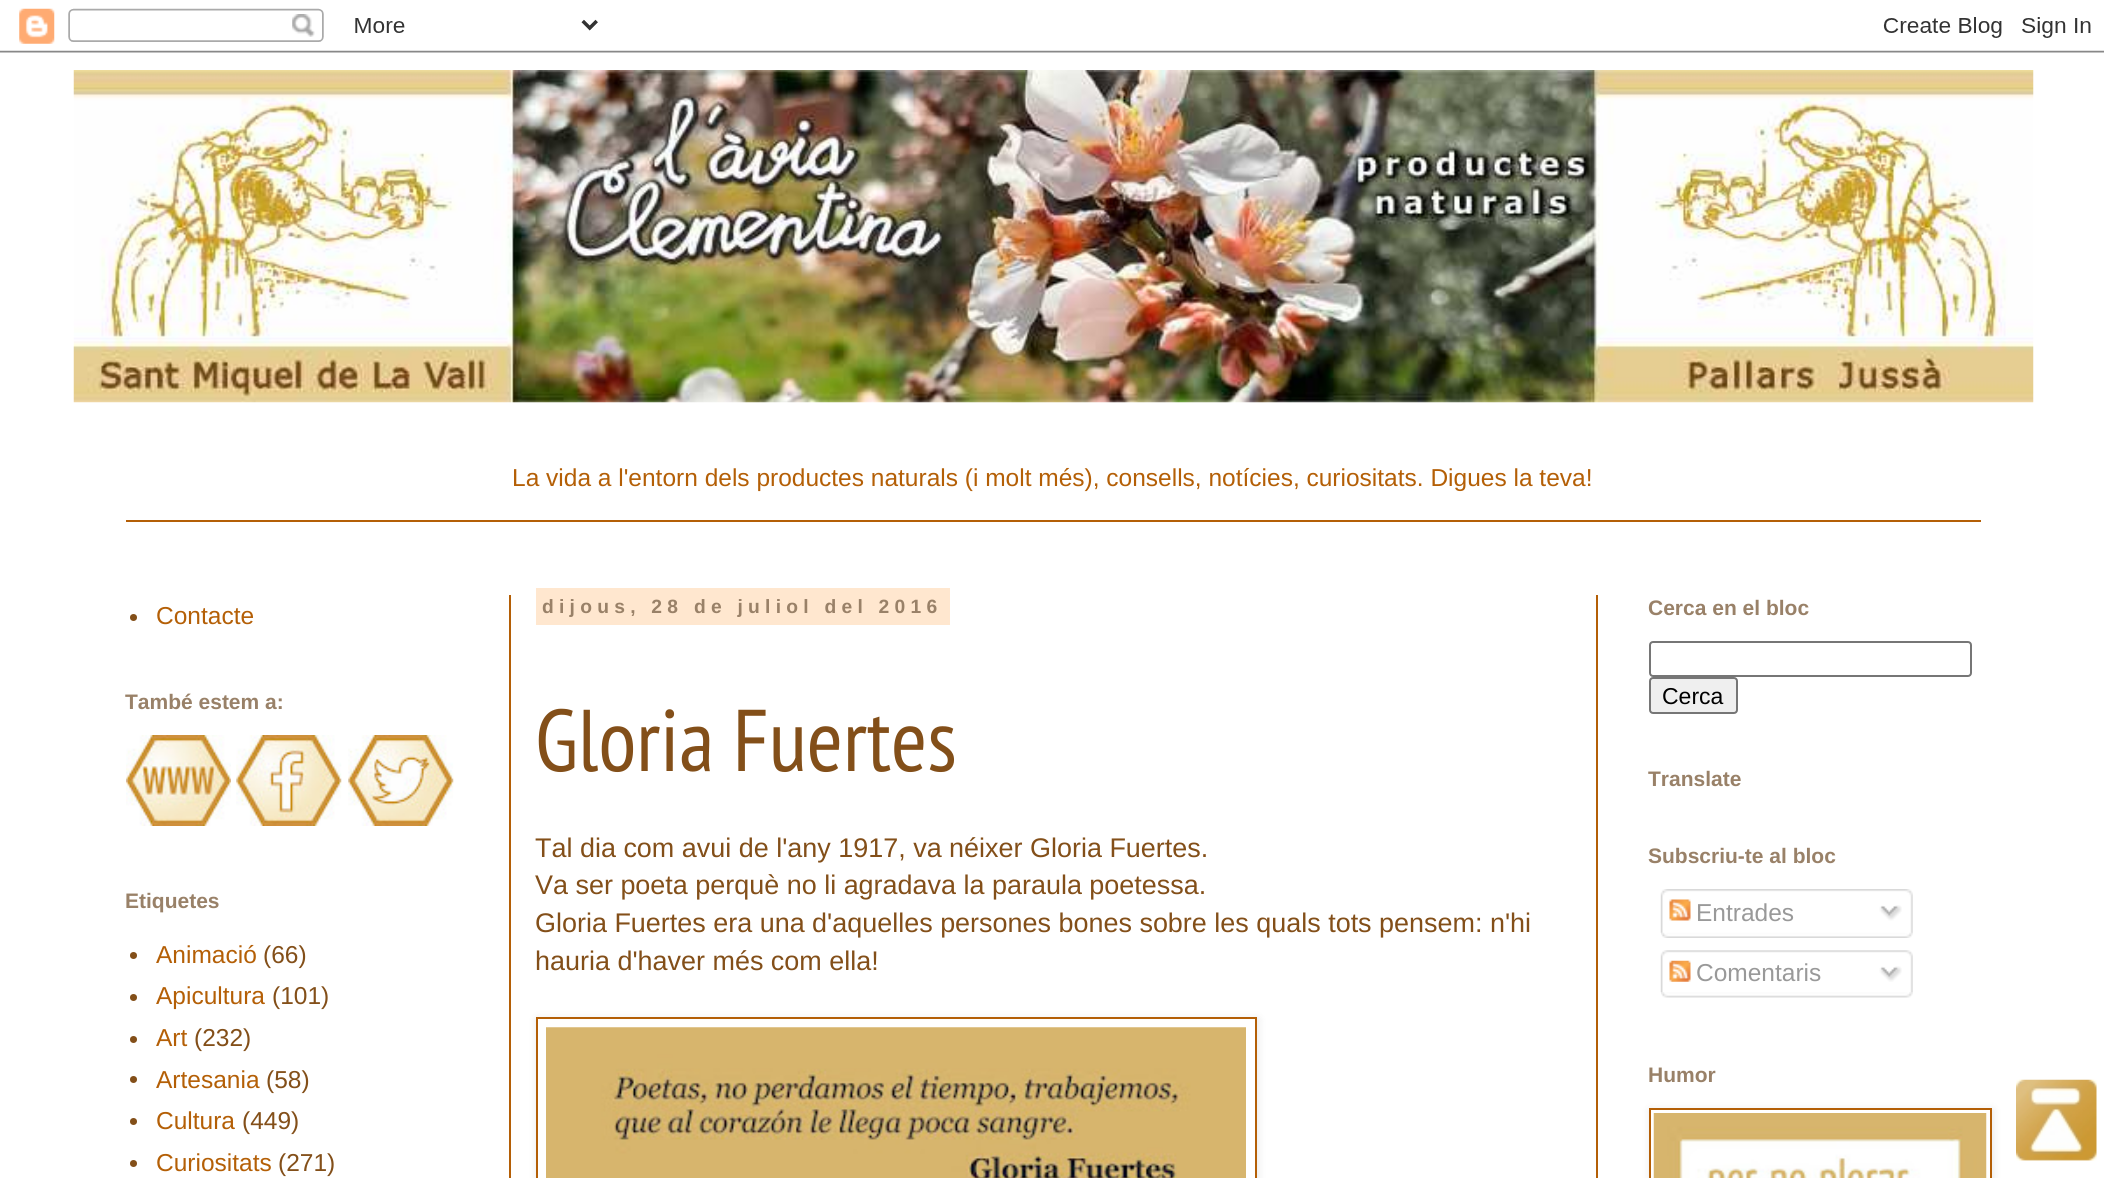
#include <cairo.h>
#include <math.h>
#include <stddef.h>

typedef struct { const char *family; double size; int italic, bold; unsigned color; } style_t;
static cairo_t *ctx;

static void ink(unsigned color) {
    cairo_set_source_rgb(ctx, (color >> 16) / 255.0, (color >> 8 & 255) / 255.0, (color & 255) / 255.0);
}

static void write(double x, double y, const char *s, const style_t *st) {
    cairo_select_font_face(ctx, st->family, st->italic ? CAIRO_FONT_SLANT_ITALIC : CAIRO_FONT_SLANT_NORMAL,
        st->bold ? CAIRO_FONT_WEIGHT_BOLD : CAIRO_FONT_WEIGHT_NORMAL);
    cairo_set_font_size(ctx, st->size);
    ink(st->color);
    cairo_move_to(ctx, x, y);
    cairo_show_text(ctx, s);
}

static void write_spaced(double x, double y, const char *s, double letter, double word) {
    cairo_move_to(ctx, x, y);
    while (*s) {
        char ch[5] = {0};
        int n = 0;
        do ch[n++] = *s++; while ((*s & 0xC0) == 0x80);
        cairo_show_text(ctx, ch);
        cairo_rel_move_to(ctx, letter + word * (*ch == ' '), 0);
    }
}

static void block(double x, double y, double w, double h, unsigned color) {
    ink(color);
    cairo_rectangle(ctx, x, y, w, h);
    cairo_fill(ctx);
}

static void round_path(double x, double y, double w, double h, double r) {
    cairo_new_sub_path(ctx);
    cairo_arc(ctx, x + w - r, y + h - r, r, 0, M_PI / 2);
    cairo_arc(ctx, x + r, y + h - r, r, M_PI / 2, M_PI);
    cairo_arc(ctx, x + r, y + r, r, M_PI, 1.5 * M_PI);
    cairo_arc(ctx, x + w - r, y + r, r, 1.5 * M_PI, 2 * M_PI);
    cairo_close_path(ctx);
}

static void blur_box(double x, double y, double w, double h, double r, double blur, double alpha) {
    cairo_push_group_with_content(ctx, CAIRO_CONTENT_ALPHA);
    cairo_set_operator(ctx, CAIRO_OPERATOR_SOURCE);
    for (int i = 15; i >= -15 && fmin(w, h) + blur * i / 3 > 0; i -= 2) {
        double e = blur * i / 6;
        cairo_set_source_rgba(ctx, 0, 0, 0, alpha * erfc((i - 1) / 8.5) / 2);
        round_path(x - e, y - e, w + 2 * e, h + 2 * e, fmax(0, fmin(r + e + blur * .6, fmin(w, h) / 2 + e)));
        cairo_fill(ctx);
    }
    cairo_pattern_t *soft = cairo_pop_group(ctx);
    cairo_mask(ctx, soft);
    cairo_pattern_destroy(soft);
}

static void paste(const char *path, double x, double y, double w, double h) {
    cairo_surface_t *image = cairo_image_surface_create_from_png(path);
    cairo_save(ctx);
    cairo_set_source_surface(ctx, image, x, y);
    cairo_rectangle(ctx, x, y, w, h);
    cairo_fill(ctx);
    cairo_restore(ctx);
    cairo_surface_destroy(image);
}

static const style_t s1 = {"Liberation Sans", 24.5, 0, 0, 0xb45f06};
static const style_t s2 = {"Liberation Sans", 21, 0, 1, 0x998168};
static const style_t s3 = {"Liberation Sans", 24.5, 0, 0, 0x834f19};
static const style_t s4 = {"PT Sans Narrow", 87.5, 0, 0, 0x834f19};
static const style_t s5 = {"Liberation Sans", 26.95, 0, 0, 0x834f19};
static const style_t s6 = {"Liberation Sans", 23, 0, 0, 0x000000};
static const style_t s7 = {"Liberation Sans", 24.5, 0, 0, 0x999999};

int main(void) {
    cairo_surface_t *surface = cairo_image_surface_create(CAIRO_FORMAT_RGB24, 2104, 1178);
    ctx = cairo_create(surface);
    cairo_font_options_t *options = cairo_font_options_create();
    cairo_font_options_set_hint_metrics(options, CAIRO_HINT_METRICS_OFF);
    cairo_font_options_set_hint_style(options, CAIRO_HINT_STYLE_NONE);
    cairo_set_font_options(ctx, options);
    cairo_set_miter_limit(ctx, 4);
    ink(0xffffff);
    cairo_paint(ctx);
    paste("pic1.png", 0, 8, 2104, 45);
    paste("pic2.png", 73, 70, 1961, 333);
    write(512, 486, "La vida a l'entorn dels productes naturals (i molt més), consells, notícies, curiositats. Digues la teva!", &s1);
    block(126, 520, 1855, 2, 0xb45f06);
    block(509, 595, 2, 583, 0xb45f06);
    block(1596, 595, 2, 583, 0xb45f06);
    ink(0x834f19);
    cairo_new_path(ctx);
    cairo_arc(ctx, 133.5, 617.5, 3.5, 0, 2 * M_PI);
    cairo_fill(ctx);
    write(156, 624, "Contacte", &s1);
    write(125, 709, "També estem a:", &s2);
    paste("pic3.png", 126, 735, 105, 91);
    paste("pic4.png", 236, 735, 106, 91);
    paste("pic5.png", 348, 735, 106, 91);
    write(125, 908, "Etiquetes", &s2);
    ink(0x834f19);
    cairo_new_path(ctx);
    cairo_arc(ctx, 133.5, 955.5, 3.5, 0, 2 * M_PI);
    cairo_fill(ctx);
    write(156, 963, "Animació", &s1);
    write(263, 963, "(66)", &s3);
    cairo_new_path(ctx);
    cairo_arc(ctx, 133.5, 997.5, 3.5, 0, 2 * M_PI);
    cairo_fill(ctx);
    write(156, 1004, "Apicultura", &s1);
    write(272, 1004, "(101)", &s3);
    cairo_new_path(ctx);
    cairo_arc(ctx, 133.5, 1039.5, 3.5, 0, 2 * M_PI);
    cairo_fill(ctx);
    write(156, 1046, "Art", &s1);
    write(194, 1046, "(232)", &s3);
    cairo_new_path(ctx);
    cairo_arc(ctx, 133.5, 1079.5, 3.5, 0, 2 * M_PI);
    cairo_fill(ctx);
    write(156, 1088, "Artesania", &s1);
    write(266, 1088, "(58)", &s3);
    cairo_new_path(ctx);
    cairo_arc(ctx, 133.5, 1121.5, 3.5, 0, 2 * M_PI);
    cairo_fill(ctx);
    write(156, 1129, "Cultura", &s1);
    write(242, 1129, "(449)", &s3);
    cairo_new_path(ctx);
    cairo_arc(ctx, 133.5, 1163.5, 3.5, 0, 2 * M_PI);
    cairo_fill(ctx);
    write(156, 1171, "Curiositats", &s1);
    write(278, 1171, "(271)", &s3);
    block(536, 588, 414, 37, 0xffe7cf);
    cairo_select_font_face(ctx, "Liberation Sans", CAIRO_FONT_SLANT_NORMAL, CAIRO_FONT_WEIGHT_BOLD);
    cairo_set_font_size(ctx, 19.25);
    ink(0x998168);
    write_spaced(542, 613, "dijous, 28 de juliol del 2016", 5.25, 0);
    write(535, 771, "Gloria Fuertes", &s4);
    write(535, 857, "Tal dia com avui de l'any 1917, va néixer Gloria Fuertes.", &s5);
    write(535, 894, "Va ser poeta perquè no li agradava la paraula poetessa.", &s5);
    write(535, 932, "Gloria Fuertes era una d'aquelles persones bones sobre les quals tots pensem: n'hi", &s5);
    write(535, 970, "hauria d'haver més com ella!", &s5);
    ink(0x000000);
    blur_box(537, 1019, 721, 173, 0, 4.5, 0.1);
    ink(0xffffff);
    cairo_rectangle(ctx, 537, 1018, 719, 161);
    cairo_fill_preserve(ctx);
    ink(0xb45f06);
    cairo_stroke(ctx);
    paste("pic6.png", 546, 1027, 700, 151);
    write(1648, 615, "Cerca en el bloc", &s2);
    round_path(1650, 642, 321, 34, 3);
    ink(0x767676);
    cairo_stroke(ctx);
    ink(0xefefef);
    round_path(1650, 678, 87, 35, 3);
    cairo_fill_preserve(ctx);
    ink(0x767676);
    cairo_stroke(ctx);
    write(1662, 704, "Cerca", &s6);
    write(1648, 786, "Translate", &s2);
    write(1648, 863, "Subscriu-te al bloc", &s2);
    paste("pic7.png", 1660, 889, 253, 44);
    paste("pic8.png", 1669, 899, 22, 22);
    write(1696, 921, "Entrades", &s7);
    paste("pic9.png", 1879, 905, 23, 16);
    paste("pic10.png", 1661, 932, 252, 6);
    paste("pic11.png", 1660, 950, 253, 43);
    paste("pic12.png", 1669, 960, 22, 22);
    write(1696, 981, "Comentaris", &s7);
    paste("pic13.png", 1879, 966, 23, 16);
    paste("pic14.png", 1661, 992, 252, 6);
    write(1648, 1082, "Humor", &s2);
    ink(0x000000);
    blur_box(1650, 1110, 343, 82, 0, 4.5, 0.1);
    ink(0xffffff);
    cairo_rectangle(ctx, 1650, 1109, 341, 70);
    cairo_fill_preserve(ctx);
    ink(0xb45f06);
    cairo_stroke(ctx);
    paste("pic15.png", 1653, 1113, 334, 65);
    paste("pic16.png", 2016, 1079, 81, 82);
    cairo_surface_write_to_png(surface, "screenshot.png");
    cairo_font_options_destroy(options);
    cairo_destroy(ctx);
    cairo_surface_destroy(surface);
    return 0;
}
